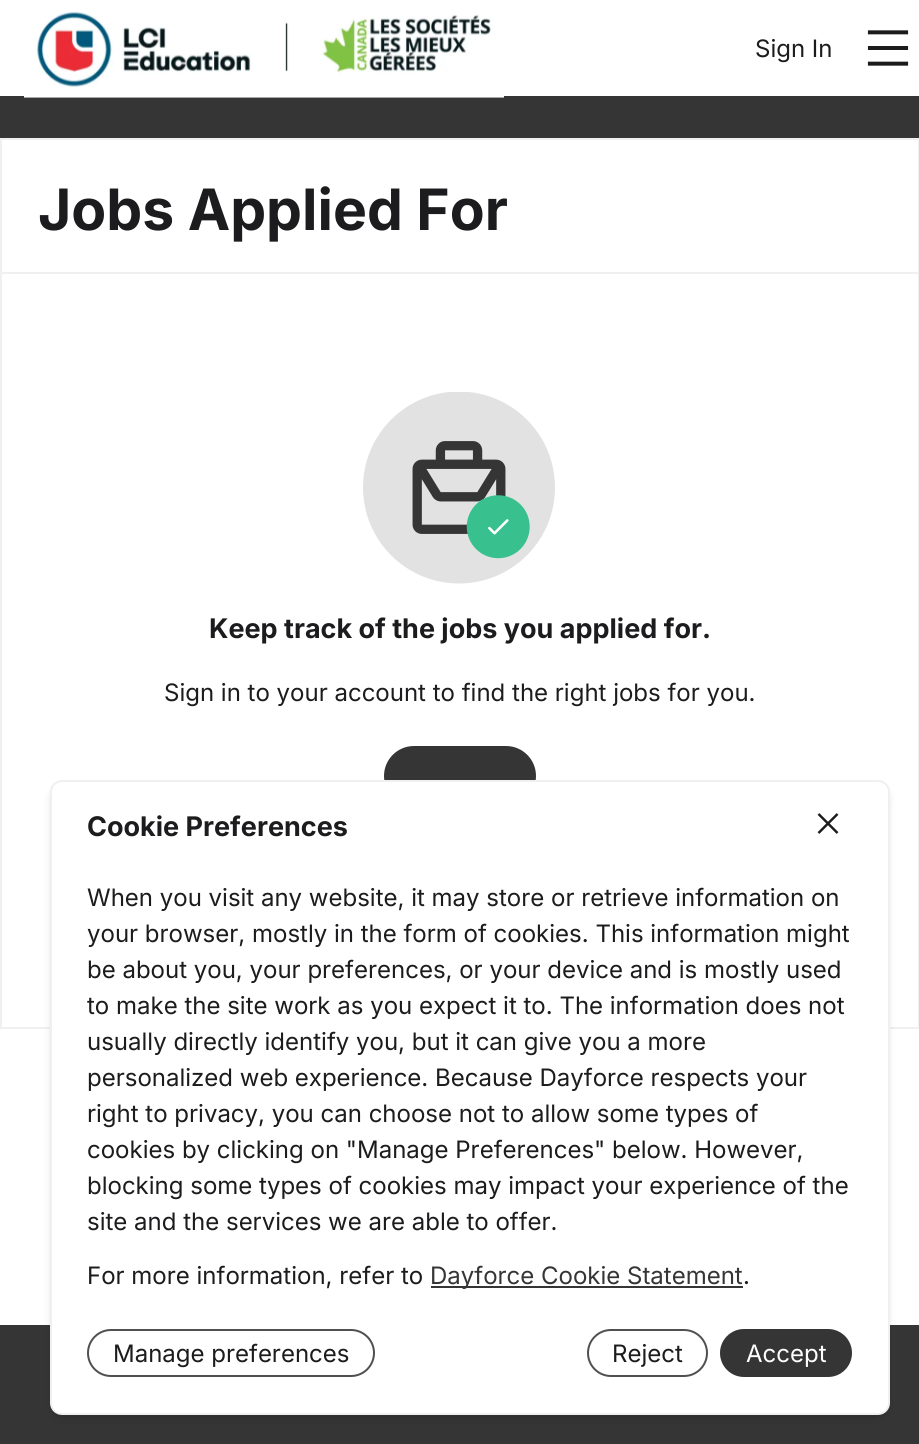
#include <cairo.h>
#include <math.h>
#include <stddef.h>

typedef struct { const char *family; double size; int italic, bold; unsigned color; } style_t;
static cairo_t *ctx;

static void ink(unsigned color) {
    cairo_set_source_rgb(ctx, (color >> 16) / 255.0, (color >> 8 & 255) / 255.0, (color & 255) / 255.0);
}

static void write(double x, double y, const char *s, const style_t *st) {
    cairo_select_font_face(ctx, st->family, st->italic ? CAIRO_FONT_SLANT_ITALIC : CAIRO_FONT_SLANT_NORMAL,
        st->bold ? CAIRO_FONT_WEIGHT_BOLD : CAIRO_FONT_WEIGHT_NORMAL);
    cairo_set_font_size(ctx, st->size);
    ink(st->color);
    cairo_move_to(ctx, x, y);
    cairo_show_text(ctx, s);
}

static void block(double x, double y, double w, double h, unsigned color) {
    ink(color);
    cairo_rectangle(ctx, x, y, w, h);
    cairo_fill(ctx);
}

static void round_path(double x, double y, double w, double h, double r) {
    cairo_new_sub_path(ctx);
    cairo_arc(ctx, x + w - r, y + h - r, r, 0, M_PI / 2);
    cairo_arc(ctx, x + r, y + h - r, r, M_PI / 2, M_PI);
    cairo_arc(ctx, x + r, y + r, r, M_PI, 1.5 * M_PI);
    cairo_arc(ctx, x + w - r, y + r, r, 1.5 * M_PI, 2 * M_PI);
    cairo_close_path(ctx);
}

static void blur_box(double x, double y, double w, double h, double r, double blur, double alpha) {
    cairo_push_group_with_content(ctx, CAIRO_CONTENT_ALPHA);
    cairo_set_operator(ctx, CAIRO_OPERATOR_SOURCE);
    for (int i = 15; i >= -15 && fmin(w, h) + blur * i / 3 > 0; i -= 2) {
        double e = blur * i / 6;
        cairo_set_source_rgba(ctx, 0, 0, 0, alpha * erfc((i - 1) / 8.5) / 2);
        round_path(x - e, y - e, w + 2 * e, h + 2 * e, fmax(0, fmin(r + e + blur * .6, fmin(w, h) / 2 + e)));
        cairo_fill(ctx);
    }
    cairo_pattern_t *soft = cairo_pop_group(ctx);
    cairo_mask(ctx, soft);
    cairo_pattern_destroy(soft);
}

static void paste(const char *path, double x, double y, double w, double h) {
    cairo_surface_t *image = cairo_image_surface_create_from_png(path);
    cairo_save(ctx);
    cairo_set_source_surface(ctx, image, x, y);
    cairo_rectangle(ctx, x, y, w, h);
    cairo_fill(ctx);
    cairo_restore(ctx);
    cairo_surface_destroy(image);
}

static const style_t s1 = {"Inter", 24, 0, 0, 0x1c1c1e};
static const style_t s2 = {"Inter", 57, 0, 1, 0x1c1c1e};
static const style_t s3 = {"Inter", 27, 0, 1, 0x1c1c1e};
static const style_t s4 = {"Inter", 24, 0, 0, 0x353535};
static const style_t s5 = {"Inter", 24, 0, 0, 0xffffff};

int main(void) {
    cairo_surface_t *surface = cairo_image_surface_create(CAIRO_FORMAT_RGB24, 919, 1444);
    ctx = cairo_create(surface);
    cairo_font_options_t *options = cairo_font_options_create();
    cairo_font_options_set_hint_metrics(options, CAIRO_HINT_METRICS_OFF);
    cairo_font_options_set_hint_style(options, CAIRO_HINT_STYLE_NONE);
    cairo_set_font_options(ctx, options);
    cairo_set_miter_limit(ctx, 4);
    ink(0xffffff);
    cairo_paint(ctx);
    block(0, 96, 919, 42, 0x353535);
    paste("pic1.png", 24, 11, 480, 87);
    write(755, 57, "Sign In", &s1);
    paste("pic2.png", 867, 30, 42, 36);
    cairo_rectangle(ctx, 1, 139, 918, 889);
    ink(0xf0f0f0);
    cairo_stroke(ctx);
    block(2, 272, 916, 2, 0xf0f0f0);
    write(38, 230, "Jobs Applied For", &s2);
    paste("pic3.png", 363, 392, 192, 192);
    write(209, 638, "Keep track of the jobs you applied for.", &s3);
    write(164, 701, "Sign in to your account to find the right jobs for you.", &s1);
    ink(0x353535);
    round_path(384, 746, 152, 60, 30);
    cairo_fill(ctx);
    block(0, 1325, 919, 119, 0x353535);
    ink(0x000000);
    blur_box(53, 786, 834, 629, 9, 3, 0.1);
    blur_box(51, 788, 837, 631, 11, 4.5, 0.1);
    ink(0xffffff);
    round_path(51, 781, 838, 633, 11);
    cairo_fill_preserve(ctx);
    ink(0xf0f0f0);
    cairo_stroke(ctx);
    write(87, 836, "Cookie Preferences", &s3);
    paste("pic4.png", 817, 813, 22, 21);
    write(87, 906, "When you visit any website, it may store or retrieve information on", &s1);
    write(87, 942, "your browser, mostly in the form of cookies. This information might", &s1);
    write(87, 978, "be about you, your preferences, or your device and is mostly used", &s1);
    write(87, 1014, "to make the site work as you expect it to. The information does not", &s1);
    write(87, 1050, "usually directly identify you, but it can give you a more", &s1);
    write(87, 1086, "personalized web experience. Because Dayforce respects your", &s1);
    write(87, 1122, "right to privacy, you can choose not to allow some types of", &s1);
    write(87, 1158, "cookies by clicking on \"Manage Preferences\" below. However,", &s1);
    write(87, 1194, "blocking some types of cookies may impact your experience of the", &s1);
    write(87, 1230, "site and the services we are able to offer.", &s1);
    write(87, 1284, "For more information, refer to", &s1);
    block(431, 1286, 312, 2, 0x353535);
    write(430, 1284, "Dayforce Cookie Statement", &s4);
    write(743, 1284, ".", &s1);
    round_path(88, 1330, 286, 46, 23);
    ink(0x505050);
    cairo_stroke(ctx);
    write(113, 1362, "Manage preferences", &s1);
    round_path(588, 1330, 119, 46, 23);
    ink(0x505050);
    cairo_stroke(ctx);
    write(612, 1362, "Reject", &s1);
    ink(0x353535);
    round_path(720, 1329, 132, 48, 24);
    cairo_fill(ctx);
    write(746, 1362, "Accept", &s5);
    cairo_surface_write_to_png(surface, "screenshot.png");
    cairo_font_options_destroy(options);
    cairo_destroy(ctx);
    cairo_surface_destroy(surface);
    return 0;
}
